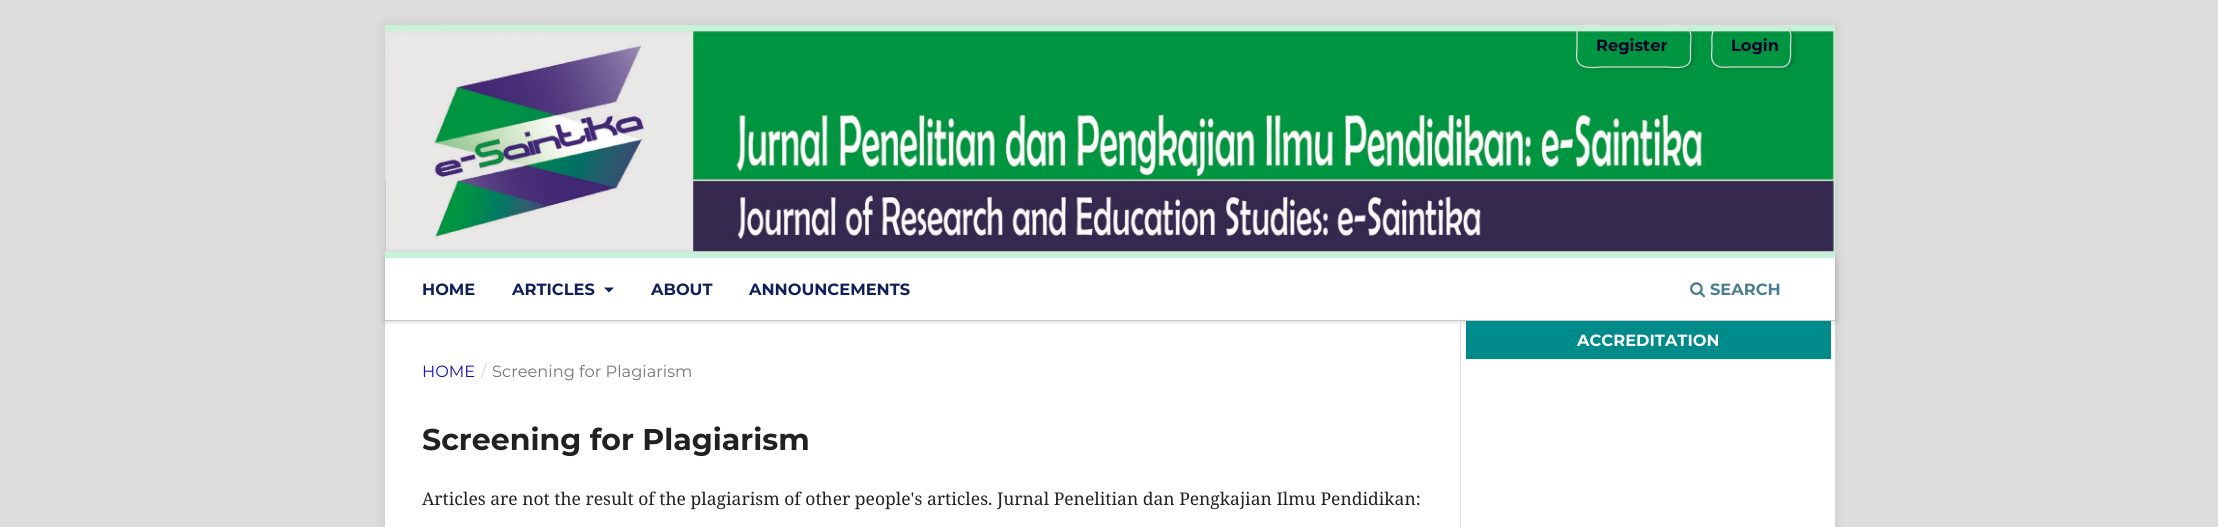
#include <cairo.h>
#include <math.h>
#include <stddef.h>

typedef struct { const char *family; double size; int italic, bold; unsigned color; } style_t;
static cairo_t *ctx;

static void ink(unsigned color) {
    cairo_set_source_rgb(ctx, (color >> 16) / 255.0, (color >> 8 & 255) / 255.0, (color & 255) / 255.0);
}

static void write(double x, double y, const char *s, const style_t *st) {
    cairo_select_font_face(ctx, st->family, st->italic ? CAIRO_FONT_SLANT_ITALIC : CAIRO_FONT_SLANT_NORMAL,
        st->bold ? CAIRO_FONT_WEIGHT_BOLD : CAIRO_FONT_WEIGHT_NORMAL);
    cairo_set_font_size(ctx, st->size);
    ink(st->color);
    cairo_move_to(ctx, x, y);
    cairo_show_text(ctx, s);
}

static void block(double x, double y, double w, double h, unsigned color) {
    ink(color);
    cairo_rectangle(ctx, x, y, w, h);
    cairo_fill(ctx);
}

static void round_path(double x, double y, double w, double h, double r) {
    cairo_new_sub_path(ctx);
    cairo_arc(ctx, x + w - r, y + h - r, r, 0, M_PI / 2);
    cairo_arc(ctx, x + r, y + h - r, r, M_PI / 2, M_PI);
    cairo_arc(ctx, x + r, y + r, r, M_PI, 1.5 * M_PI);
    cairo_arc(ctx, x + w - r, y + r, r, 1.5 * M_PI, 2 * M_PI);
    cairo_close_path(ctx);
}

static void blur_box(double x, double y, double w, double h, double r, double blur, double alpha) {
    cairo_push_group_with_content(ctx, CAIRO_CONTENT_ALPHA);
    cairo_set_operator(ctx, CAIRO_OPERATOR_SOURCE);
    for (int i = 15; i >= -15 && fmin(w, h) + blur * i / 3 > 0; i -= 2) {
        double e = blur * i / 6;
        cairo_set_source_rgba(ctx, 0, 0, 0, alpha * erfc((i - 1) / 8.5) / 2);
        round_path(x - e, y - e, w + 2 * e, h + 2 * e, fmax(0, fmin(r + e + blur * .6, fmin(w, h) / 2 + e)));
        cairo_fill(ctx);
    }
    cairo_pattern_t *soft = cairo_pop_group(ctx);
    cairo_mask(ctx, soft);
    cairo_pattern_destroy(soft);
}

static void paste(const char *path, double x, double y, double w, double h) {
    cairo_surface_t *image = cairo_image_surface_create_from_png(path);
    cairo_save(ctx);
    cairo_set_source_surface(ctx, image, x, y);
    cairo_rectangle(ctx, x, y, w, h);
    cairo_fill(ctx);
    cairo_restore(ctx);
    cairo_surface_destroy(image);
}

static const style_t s1 = {"Montserrat", 16.25, 0, 1, 0x030429};
static const style_t s2 = {"Montserrat", 16.25, 0, 1, 0x101e5a};
static const style_t s3 = {"Montserrat", 16.25, 0, 1, 0x4b7d92};
static const style_t s4 = {"Montserrat", 16.25, 0, 1, 0xffffff};
static const style_t s5 = {"Montserrat", 16.25, 0, 0, 0x1a11a7};
static const style_t s6 = {"Montserrat", 16.25, 0, 0, 0xd6d6d6};
static const style_t s7 = {"Montserrat", 16.25, 0, 0, 0x757575};
static const style_t s8 = {"Montserrat", 30, 0, 1, 0x212121};
static const style_t s9 = {"Noto Serif", 17.5, 0, 0, 0x212121};

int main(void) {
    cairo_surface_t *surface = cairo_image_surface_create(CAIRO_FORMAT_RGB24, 2218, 527);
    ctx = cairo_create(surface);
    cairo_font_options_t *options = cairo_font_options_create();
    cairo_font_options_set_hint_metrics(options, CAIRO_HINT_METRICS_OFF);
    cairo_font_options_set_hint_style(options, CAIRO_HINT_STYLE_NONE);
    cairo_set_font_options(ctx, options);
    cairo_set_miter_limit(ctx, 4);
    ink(0xdddddd);
    cairo_paint(ctx);
    ink(0x000000);
    blur_box(385, 25, 1450, 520, 0, 6, 0.1);
    block(385, 321, 1450, 206, 0xffffff);
    block(385, 320, 1450, 1, 0xdddddd);
    ink(0x67686b);
    blur_box(385, 258, 1451, 63, 0, 3, 0.34);
    block(385, 25, 1450, 233, 0xc8f1da);
    paste("pic1.png", 385, 31, 1449, 221);
    cairo_save(ctx);
    cairo_set_fill_rule(ctx, CAIRO_FILL_RULE_EVEN_ODD);
    cairo_new_path(ctx);
    cairo_move_to(ctx, 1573, 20);
    cairo_line_to(ctx, 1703, 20);
    cairo_line_to(ctx, 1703, 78);
    cairo_line_to(ctx, 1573, 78);
    cairo_close_path(ctx);
    cairo_move_to(ctx, 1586, 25);
    cairo_line_to(ctx, 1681, 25);
    cairo_curve_to(ctx, 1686.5, 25, 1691, 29.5, 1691, 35);
    cairo_line_to(ctx, 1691, 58);
    cairo_curve_to(ctx, 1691, 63.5, 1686.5, 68, 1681, 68);
    cairo_line_to(ctx, 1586, 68);
    cairo_curve_to(ctx, 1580.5, 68, 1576, 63.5, 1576, 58);
    cairo_line_to(ctx, 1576, 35);
    cairo_curve_to(ctx, 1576, 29.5, 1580.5, 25, 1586, 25);
    cairo_close_path(ctx);
    cairo_clip(ctx);
    ink(0x000000);
    blur_box(1583, 30, 110, 38, 8, 3, 0.2);
    cairo_restore(ctx);
    cairo_new_path(ctx);
    cairo_move_to(ctx, 1688, 28.5);
    cairo_curve_to(ctx, 1692.5, 33, 1690.5, 40.5, 1690.5, 46);
    cairo_line_to(ctx, 1690.5, 59.5);
    cairo_curve_to(ctx, 1688.5, 70.5, 1672.5, 67, 1665.5, 67);
    cairo_line_to(ctx, 1602, 67);
    cairo_curve_to(ctx, 1597.5, 67, 1585, 69.5, 1579.5, 64);
    ink(0xdadada);
    cairo_set_line_width(ctx, 1.2);
    cairo_stroke(ctx);
    cairo_new_path(ctx);
    cairo_move_to(ctx, 1579.5, 64);
    cairo_curve_to(ctx, 1575, 59.5, 1577, 52, 1577, 46.5);
    cairo_line_to(ctx, 1577, 33);
    cairo_curve_to(ctx, 1579, 22, 1595, 25.5, 1602, 25.5);
    cairo_line_to(ctx, 1665.5, 25.5);
    cairo_curve_to(ctx, 1670, 25.5, 1682.5, 23, 1688, 28.5);
    ink(0xe6dfdf);
    cairo_stroke(ctx);
    write(1596, 51, "Register", &s1);
    cairo_save(ctx);
    cairo_set_fill_rule(ctx, CAIRO_FILL_RULE_EVEN_ODD);
    cairo_new_path(ctx);
    cairo_move_to(ctx, 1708, 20);
    cairo_line_to(ctx, 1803, 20);
    cairo_line_to(ctx, 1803, 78);
    cairo_line_to(ctx, 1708, 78);
    cairo_close_path(ctx);
    cairo_move_to(ctx, 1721, 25);
    cairo_line_to(ctx, 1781, 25);
    cairo_curve_to(ctx, 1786.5, 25, 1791, 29.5, 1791, 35);
    cairo_line_to(ctx, 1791, 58);
    cairo_curve_to(ctx, 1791, 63.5, 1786.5, 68, 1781, 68);
    cairo_line_to(ctx, 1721, 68);
    cairo_curve_to(ctx, 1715.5, 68, 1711, 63.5, 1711, 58);
    cairo_line_to(ctx, 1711, 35);
    cairo_curve_to(ctx, 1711, 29.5, 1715.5, 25, 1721, 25);
    cairo_close_path(ctx);
    cairo_clip(ctx);
    ink(0x000000);
    blur_box(1718, 30, 75, 38, 8, 3, 0.2);
    cairo_restore(ctx);
    cairo_new_path(ctx);
    cairo_move_to(ctx, 1788, 28.5);
    cairo_curve_to(ctx, 1792.5, 33, 1790.5, 40.5, 1790.5, 46);
    cairo_curve_to(ctx, 1790.5, 53.5, 1792.5, 66, 1782, 67);
    cairo_line_to(ctx, 1731, 67);
    cairo_curve_to(ctx, 1726, 67, 1719, 68.5, 1714.5, 64);
    ink(0xdadada);
    cairo_stroke(ctx);
    cairo_new_path(ctx);
    cairo_move_to(ctx, 1714.5, 64);
    cairo_curve_to(ctx, 1710, 59.5, 1712, 52, 1712, 46.5);
    cairo_curve_to(ctx, 1712, 39, 1710, 26.5, 1720.5, 25.5);
    cairo_line_to(ctx, 1771, 25.5);
    cairo_curve_to(ctx, 1776.5, 25.5, 1783.5, 24, 1788, 28.5);
    ink(0xe6dfdf);
    cairo_stroke(ctx);
    write(1731, 51, "Login", &s1);
    block(385, 258, 1450, 62, 0xffffff);
    write(422, 295, "HOME", &s2);
    write(512, 295, "ARTICLES", &s2);
    cairo_new_path(ctx);
    cairo_move_to(ctx, 604, 287.5);
    cairo_line_to(ctx, 614, 287.5);
    cairo_line_to(ctx, 609, 292.5);
    cairo_close_path(ctx);
    cairo_fill(ctx);
    write(651, 295, "ABOUT", &s2);
    write(749, 295, "ANNOUNCEMENTS", &s2);
    paste("pic2.png", 1690, 282, 16, 16);
    write(1710, 295, "SEARCH", &s3);
    block(1460, 321, 1, 206, 0xdddddd);
    block(1466, 321, 365, 38, 0x008b8b);
    write(1577, 346, "ACCREDITATION", &s4);
    write(422, 377, "HOME", &s5);
    write(481, 377, "/", &s6);
    write(492, 377, "Screening for Plagiarism", &s7);
    write(422, 450, "Screening for Plagiarism", &s8);
    write(422, 505, "Articles are not the result of the plagiarism of other people's articles. Jurnal Penelitian dan Pengkajian Ilmu Pendidikan:", &s9);
    cairo_surface_write_to_png(surface, "screenshot.png");
    cairo_font_options_destroy(options);
    cairo_destroy(ctx);
    cairo_surface_destroy(surface);
    return 0;
}
